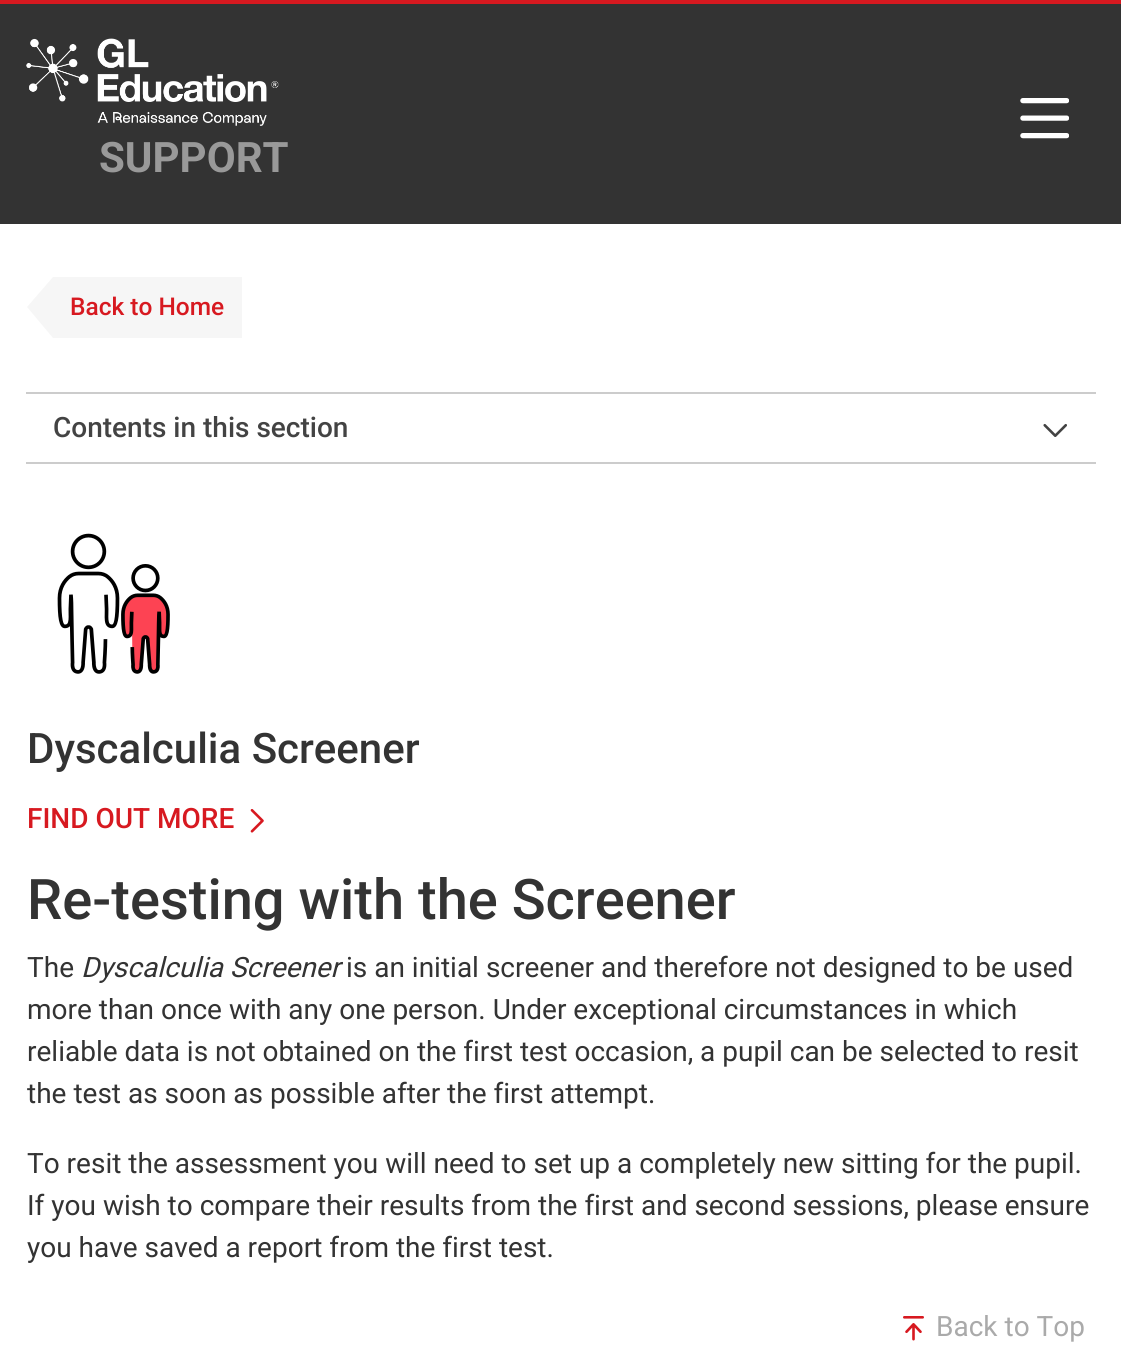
#include <cairo.h>
#include <math.h>
#include <stddef.h>

typedef struct { const char *family; double size; int italic, bold; unsigned color; } style_t;
static cairo_t *ctx;

static void ink(unsigned color) {
    cairo_set_source_rgb(ctx, (color >> 16) / 255.0, (color >> 8 & 255) / 255.0, (color & 255) / 255.0);
}

static void write(double x, double y, const char *s, const style_t *st) {
    cairo_select_font_face(ctx, st->family, st->italic ? CAIRO_FONT_SLANT_ITALIC : CAIRO_FONT_SLANT_NORMAL,
        st->bold ? CAIRO_FONT_WEIGHT_BOLD : CAIRO_FONT_WEIGHT_NORMAL);
    cairo_set_font_size(ctx, st->size);
    ink(st->color);
    cairo_move_to(ctx, x, y);
    cairo_show_text(ctx, s);
}

static void block(double x, double y, double w, double h, unsigned color) {
    ink(color);
    cairo_rectangle(ctx, x, y, w, h);
    cairo_fill(ctx);
}

static void paste(const char *path, double x, double y, double w, double h) {
    cairo_surface_t *image = cairo_image_surface_create_from_png(path);
    cairo_save(ctx);
    cairo_set_source_surface(ctx, image, x, y);
    cairo_rectangle(ctx, x, y, w, h);
    cairo_fill(ctx);
    cairo_restore(ctx);
    cairo_surface_destroy(image);
}

static const style_t s1 = {"Roboto", 42, 0, 1, 0x999999};
static const style_t s2 = {"Roboto Medium", 24.5, 0, 0, 0xd71920};
static const style_t s3 = {"Roboto Medium", 28, 0, 0, 0x434343};
static const style_t s4 = {"Roboto Medium", 42, 0, 0, 0x333333};
static const style_t s5 = {"Roboto Medium", 28, 0, 0, 0xd71920};
static const style_t s6 = {"Roboto Medium", 56, 0, 0, 0x333333};
static const style_t s7 = {"Roboto", 28, 0, 0, 0x333333};
static const style_t s8 = {"Roboto", 28, 1, 0, 0x333333};
static const style_t s9 = {"Roboto", 28, 0, 0, 0xaaaaaa};

int main(void) {
    cairo_surface_t *surface = cairo_image_surface_create(CAIRO_FORMAT_RGB24, 1121, 1348);
    ctx = cairo_create(surface);
    cairo_font_options_t *options = cairo_font_options_create();
    cairo_font_options_set_hint_metrics(options, CAIRO_HINT_METRICS_OFF);
    cairo_font_options_set_hint_style(options, CAIRO_HINT_STYLE_NONE);
    cairo_set_font_options(ctx, options);
    cairo_set_miter_limit(ctx, 4);
    ink(0xffffff);
    cairo_paint(ctx);
    block(0, 0, 1121, 4, 0xd71920);
    block(0, 4, 1121, 220, 0x333333);
    paste("pic1.png", 1020, 98, 49, 41);
    paste("pic2.png", 26, 38, 253, 88);
    write(99, 172, "SUPPORT", &s1);
    block(53, 277, 189, 61, 0xf6f6f6);
    cairo_new_path(ctx);
    cairo_move_to(ctx, 53, 277);
    cairo_line_to(ctx, 53, 338);
    cairo_line_to(ctx, 27, 307);
    cairo_close_path(ctx);
    cairo_fill(ctx);
    write(70, 315, "Back to Home", &s2);
    block(26, 392, 1070, 2, 0xcccccc);
    block(26, 462, 1070, 2, 0xcccccc);
    write(53, 437, "Contents in this section", &s3);
    paste("pic3.png", 1043, 423, 24, 14);
    paste("pic4.png", 57, 533, 113, 141);
    write(27, 763, "Dyscalculia Screener", &s4);
    write(27, 828, "FIND OUT MORE", &s5);
    paste("pic5.png", 250, 809, 14, 24);
    write(27, 919, "Re-testing with the Screener", &s6);
    write(27, 977, "The", &s7);
    write(81, 977, "Dyscalculia Screener", &s8);
    write(346, 977, "is an initial screener and therefore not designed to be used", &s7);
    write(27, 1019, "more than once with any one person. Under exceptional circumstances in which", &s7);
    write(27, 1061, "reliable data is not obtained on the first test occasion, a pupil can be selected to resit", &s7);
    write(27, 1103, "the test as soon as possible after the first attempt.", &s7);
    write(27, 1173, "To resit the assessment you will need to set up a completely new sitting for the pupil.", &s7);
    write(27, 1215, "If you wish to compare their results from the first and second sessions, please ensure", &s7);
    write(27, 1257, "you have saved a report from the first test.", &s7);
    paste("pic6.png", 903, 1316, 21, 25);
    write(936, 1336, "Back to Top", &s9);
    cairo_surface_write_to_png(surface, "screenshot.png");
    cairo_font_options_destroy(options);
    cairo_destroy(ctx);
    cairo_surface_destroy(surface);
    return 0;
}
